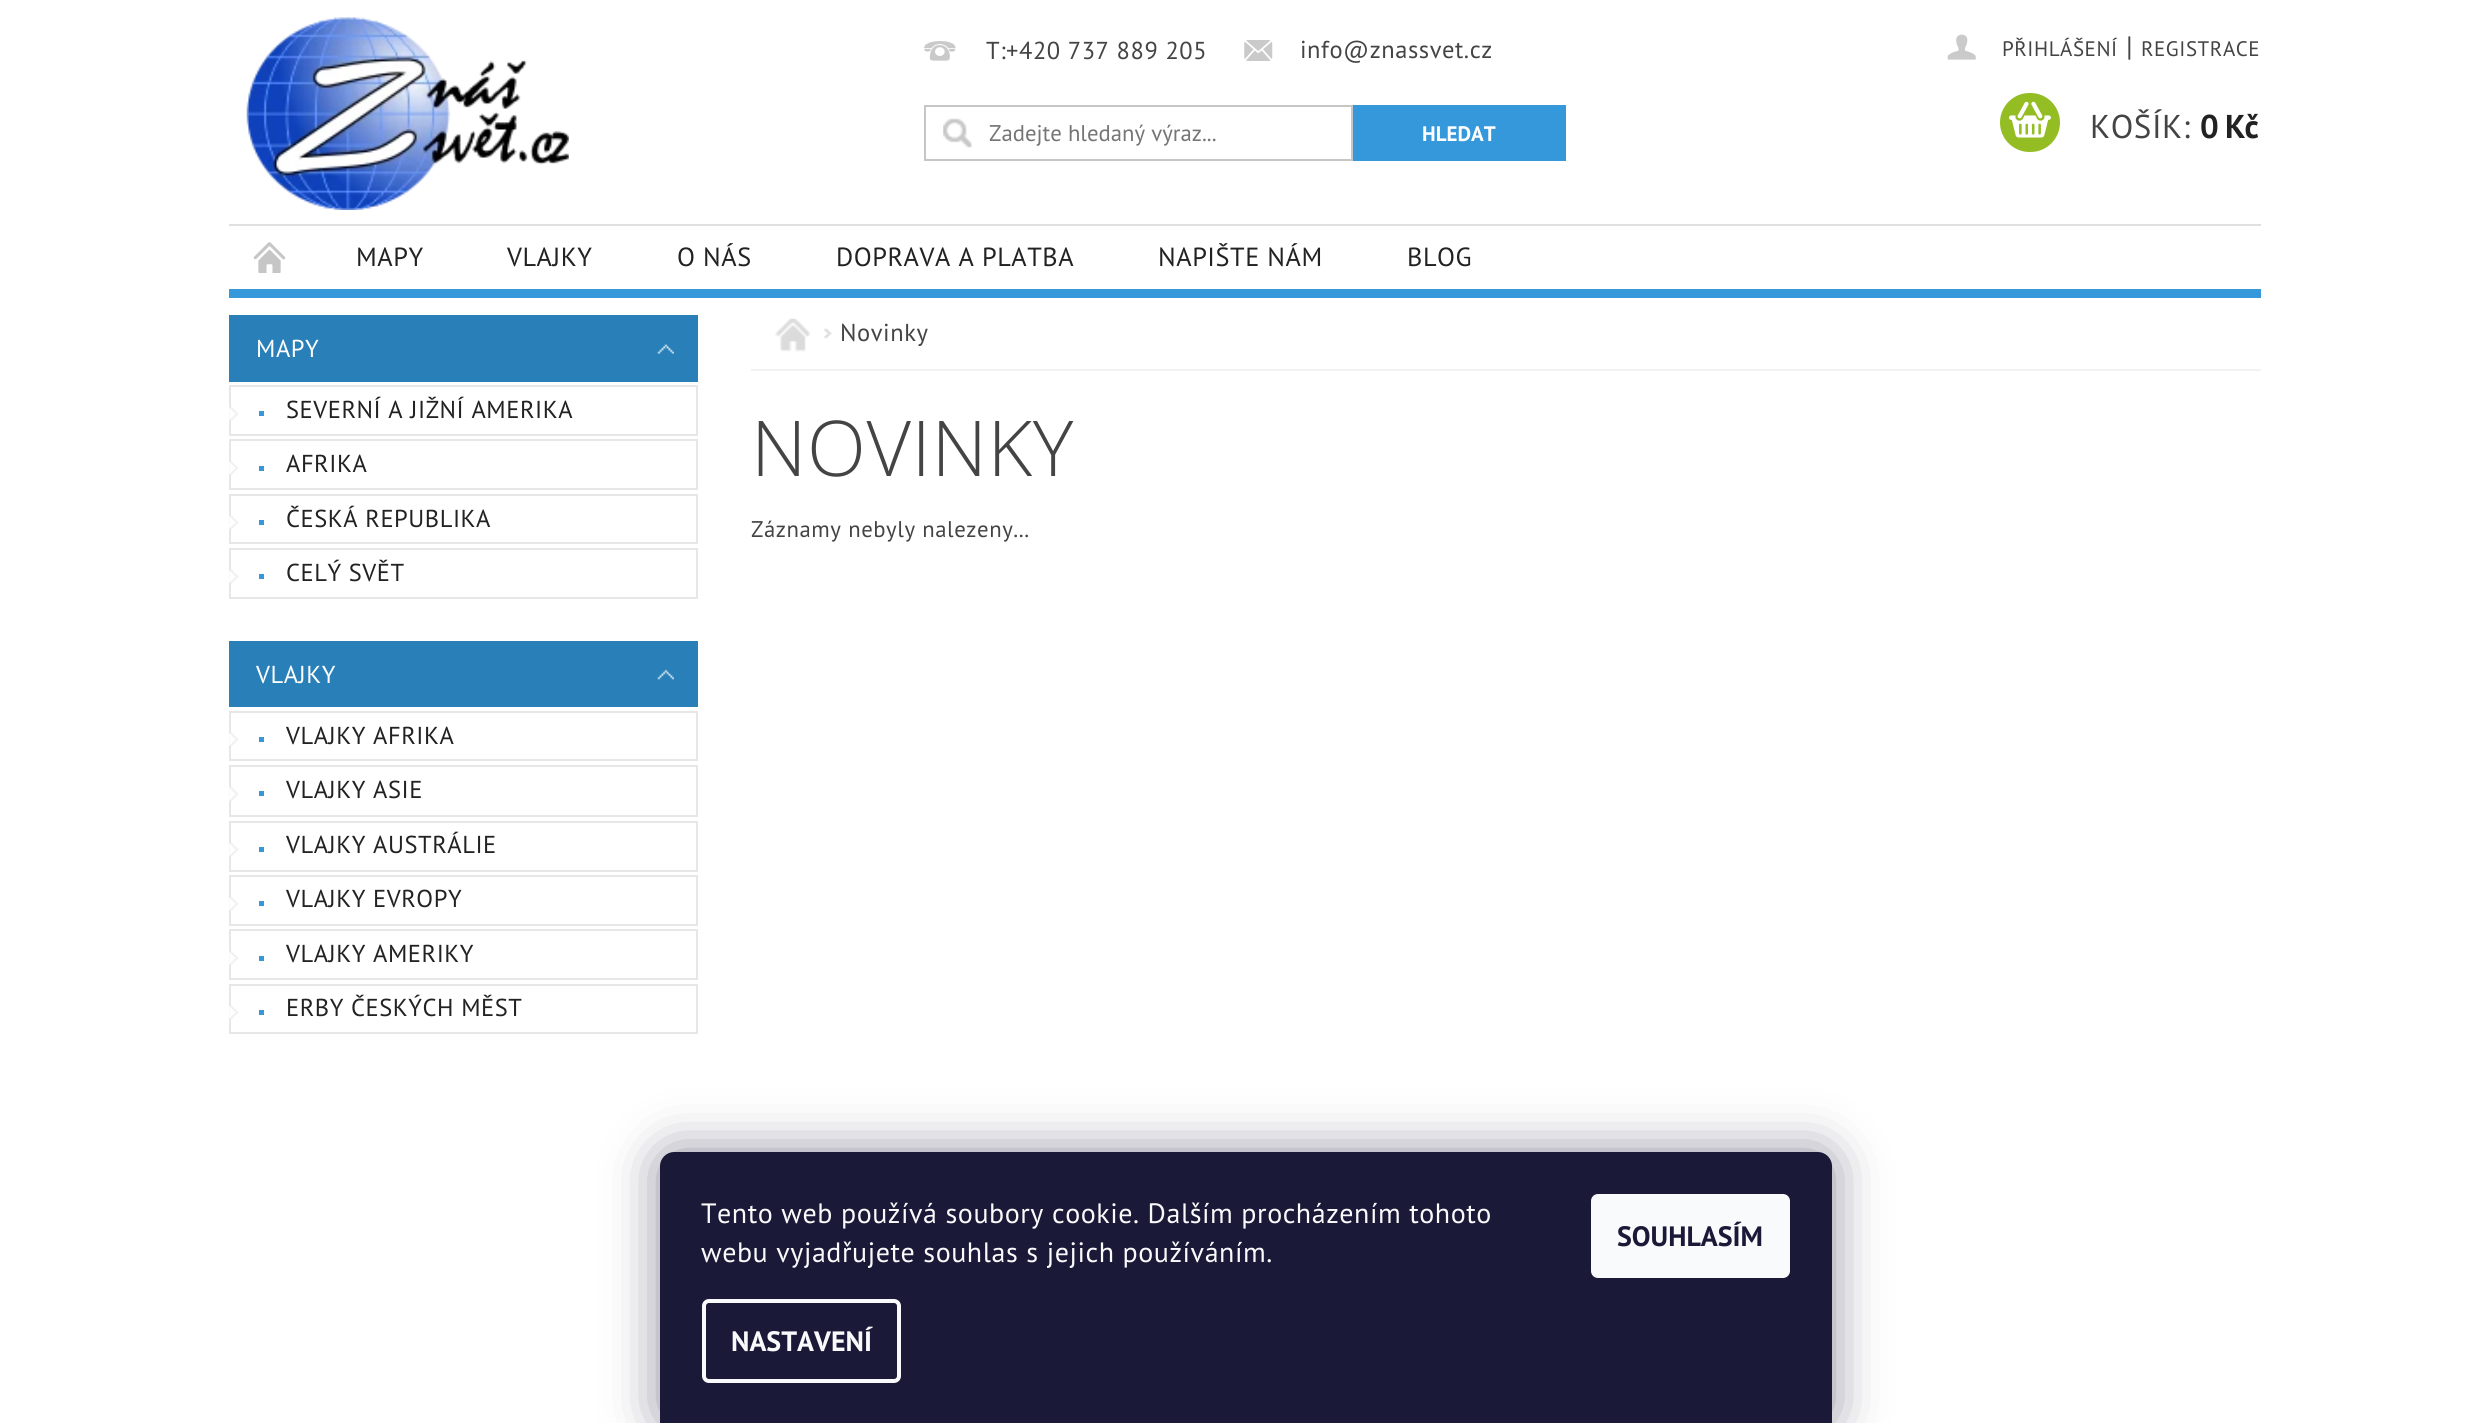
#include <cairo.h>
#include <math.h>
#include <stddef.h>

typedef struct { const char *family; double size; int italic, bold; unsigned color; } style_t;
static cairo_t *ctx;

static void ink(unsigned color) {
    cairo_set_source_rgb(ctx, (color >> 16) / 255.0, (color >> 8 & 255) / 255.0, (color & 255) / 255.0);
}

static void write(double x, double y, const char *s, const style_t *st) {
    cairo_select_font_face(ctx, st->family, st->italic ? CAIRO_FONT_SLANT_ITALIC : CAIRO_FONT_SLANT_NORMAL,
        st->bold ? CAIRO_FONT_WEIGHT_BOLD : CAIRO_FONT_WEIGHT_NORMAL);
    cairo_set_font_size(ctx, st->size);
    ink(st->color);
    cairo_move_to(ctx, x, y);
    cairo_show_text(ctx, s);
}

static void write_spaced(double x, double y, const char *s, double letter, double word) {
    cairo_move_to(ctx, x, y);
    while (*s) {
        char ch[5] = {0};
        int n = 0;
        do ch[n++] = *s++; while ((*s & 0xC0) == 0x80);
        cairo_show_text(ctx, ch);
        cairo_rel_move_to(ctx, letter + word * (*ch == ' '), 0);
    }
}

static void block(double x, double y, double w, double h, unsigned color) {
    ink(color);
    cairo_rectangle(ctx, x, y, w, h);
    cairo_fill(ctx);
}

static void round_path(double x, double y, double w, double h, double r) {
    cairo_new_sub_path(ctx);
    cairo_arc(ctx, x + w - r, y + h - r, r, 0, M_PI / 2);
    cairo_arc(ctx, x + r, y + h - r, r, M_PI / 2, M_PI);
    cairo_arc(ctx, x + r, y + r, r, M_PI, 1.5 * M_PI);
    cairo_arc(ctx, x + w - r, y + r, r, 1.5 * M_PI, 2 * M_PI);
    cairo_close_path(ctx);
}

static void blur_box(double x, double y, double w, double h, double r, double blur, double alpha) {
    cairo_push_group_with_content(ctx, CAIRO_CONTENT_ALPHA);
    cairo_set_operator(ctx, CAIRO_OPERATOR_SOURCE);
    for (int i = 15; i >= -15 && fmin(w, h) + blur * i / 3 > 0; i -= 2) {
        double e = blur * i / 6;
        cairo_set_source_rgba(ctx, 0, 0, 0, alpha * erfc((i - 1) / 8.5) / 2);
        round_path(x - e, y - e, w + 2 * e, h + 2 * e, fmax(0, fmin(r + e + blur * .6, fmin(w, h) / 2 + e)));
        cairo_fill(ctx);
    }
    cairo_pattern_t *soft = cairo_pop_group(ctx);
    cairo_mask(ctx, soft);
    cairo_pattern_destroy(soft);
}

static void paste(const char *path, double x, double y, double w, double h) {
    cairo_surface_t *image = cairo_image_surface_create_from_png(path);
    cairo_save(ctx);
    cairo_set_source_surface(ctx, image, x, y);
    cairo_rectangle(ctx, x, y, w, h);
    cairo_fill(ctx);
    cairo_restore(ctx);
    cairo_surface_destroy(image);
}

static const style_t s1 = {"PT Sans", 22.75, 0, 0, 0x757575};
static const style_t s2 = {"PT Sans", 21, 0, 1, 0xffffff};
static const style_t s3 = {"PT Sans", 28, 0, 1, 0xf8fafb};
static const style_t s4 = {"PT Sans", 28, 0, 1, 0x1a1937};

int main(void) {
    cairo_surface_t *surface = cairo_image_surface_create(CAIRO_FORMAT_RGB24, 2489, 1423);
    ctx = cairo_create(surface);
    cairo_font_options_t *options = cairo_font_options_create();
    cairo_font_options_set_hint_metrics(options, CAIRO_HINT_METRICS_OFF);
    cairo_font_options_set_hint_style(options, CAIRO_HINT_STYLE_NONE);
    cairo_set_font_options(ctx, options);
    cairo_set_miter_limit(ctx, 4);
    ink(0xffffff);
    cairo_paint(ctx);
    block(229, 289, 2032, 9, 0x3498db);
    paste("pic1.png", 246, 17, 323, 193);
    paste("pic2.png", 924, 41, 32, 20);
    cairo_select_font_face(ctx, "PT Sans", CAIRO_FONT_SLANT_NORMAL, CAIRO_FONT_WEIGHT_NORMAL);
    cairo_set_font_size(ctx, 24.5);
    ink(0x444444);
    write_spaced(986, 59, "T:+420 737 889 205", 0.55, 0);
    paste("pic3.png", 1244, 40, 29, 21);
    write_spaced(1300, 58, "info@znassvet.cz", 0.55, 0);
    paste("pic4.png", 943, 118, 29, 30);
    cairo_rectangle(ctx, 925, 106, 427, 54);
    ink(0xc6c6c6);
    cairo_stroke(ctx);
    write(989, 141, "Zadejte hledaný výraz...", &s1);
    block(1353, 105, 213, 56, 0x3498db);
    write(1422, 141, "HLEDAT", &s2);
    paste("pic5.png", 1947, 34, 29, 26);
    cairo_select_font_face(ctx, "PT Sans", CAIRO_FONT_SLANT_NORMAL, CAIRO_FONT_WEIGHT_NORMAL);
    ink(0x444444);
    write_spaced(2002, 56, "PŘIHLÁŠENÍ", 0.55, 0);
    cairo_set_font_size(ctx, 28);
    write_spaced(2126, 56, "|", 0.55, 0);
    cairo_set_font_size(ctx, 21);
    write_spaced(2141, 56, "REGISTRACE", 0.55, 0);
    ink(0x94bd23);
    round_path(2000, 93, 60, 59, 29.5);
    cairo_fill(ctx);
    paste("pic6.png", 2009, 101, 42, 37);
    cairo_set_font_size(ctx, 33);
    ink(0x444444);
    write_spaced(2090, 138, "KOŠÍK:", 0.55, 0);
    cairo_select_font_face(ctx, "PT Sans", CAIRO_FONT_SLANT_NORMAL, CAIRO_FONT_WEIGHT_BOLD);
    ink(0x222222);
    write_spaced(2200, 138, "0 Kč", -1, 0);
    block(229, 224, 2032, 2, 0xe0e0e0);
    paste("pic7.png", 253, 242, 33, 31);
    cairo_select_font_face(ctx, "PT Sans", CAIRO_FONT_SLANT_NORMAL, CAIRO_FONT_WEIGHT_NORMAL);
    cairo_set_font_size(ctx, 26.25);
    ink(0x222222);
    write_spaced(356, 266, "MAPY", 0.55, 0);
    write_spaced(507, 266, "VLAJKY", 0.55, 0);
    write_spaced(677, 266, "O NÁS", 0.55, 0);
    write_spaced(836, 266, "DOPRAVA A PLATBA", 0.55, 0);
    write_spaced(1158, 266, "NAPIŠTE NÁM", 0.55, 0);
    write_spaced(1407, 266, "BLOG", 0.55, 0);
    block(229, 315, 469, 67, 0x2980b9);
    paste("pic8.png", 657, 344, 17, 10);
    cairo_set_font_size(ctx, 24.5);
    ink(0xffffff);
    write_spaced(256, 357, "MAPY", 0.55, 0);
    cairo_rectangle(ctx, 230, 386, 467, 49);
    ink(0xe7e7e7);
    cairo_stroke(ctx);
    paste("pic9.png", 229, 406, 10, 15);
    block(259, 411, 5, 5, 0x3498db);
    ink(0x222222);
    write_spaced(286, 418, "SEVERNÍ A JIŽNÍ AMERIKA", 0.55, 0);
    cairo_rectangle(ctx, 230, 440, 467, 49);
    ink(0xe7e7e7);
    cairo_stroke(ctx);
    paste("pic10.png", 229, 460, 10, 16);
    block(259, 466, 5, 5, 0x3498db);
    ink(0x222222);
    write_spaced(286, 472, "AFRIKA", 0.55, 0);
    cairo_rectangle(ctx, 230, 495, 467, 48);
    ink(0xe7e7e7);
    cairo_stroke(ctx);
    paste("pic11.png", 229, 515, 10, 15);
    block(259, 520, 5, 5, 0x3498db);
    ink(0x222222);
    write_spaced(286, 527, "ČESKÁ REPUBLIKA", 0.55, 0);
    cairo_rectangle(ctx, 230, 549, 467, 49);
    ink(0xe7e7e7);
    cairo_stroke(ctx);
    paste("pic12.png", 229, 569, 10, 15);
    block(259, 574, 5, 5, 0x3498db);
    ink(0x222222);
    write_spaced(286, 581, "CELÝ SVĚT", 0.55, 0);
    block(229, 641, 469, 66, 0x2980b9);
    paste("pic13.png", 657, 669, 17, 11);
    ink(0xffffff);
    write_spaced(256, 683, "VLAJKY", 0.55, 0);
    cairo_rectangle(ctx, 230, 712, 467, 48);
    ink(0xe7e7e7);
    cairo_stroke(ctx);
    paste("pic11.png", 229, 732, 10, 15);
    block(259, 737, 5, 5, 0x3498db);
    ink(0x222222);
    write_spaced(286, 744, "VLAJKY AFRIKA", 0.55, 0);
    cairo_rectangle(ctx, 230, 766, 467, 50);
    ink(0xe7e7e7);
    cairo_stroke(ctx);
    paste("pic14.png", 229, 786, 10, 16);
    block(259, 791, 5, 5, 0x3498db);
    ink(0x222222);
    write_spaced(286, 798, "VLAJKY ASIE", 0.55, 0);
    cairo_rectangle(ctx, 230, 822, 467, 49);
    ink(0xe7e7e7);
    cairo_stroke(ctx);
    paste("pic12.png", 229, 842, 10, 15);
    block(259, 847, 5, 5, 0x3498db);
    ink(0x222222);
    write_spaced(286, 853, "VLAJKY AUSTRÁLIE", 0.55, 0);
    cairo_rectangle(ctx, 230, 876, 467, 49);
    ink(0xe7e7e7);
    cairo_stroke(ctx);
    paste("pic9.png", 229, 896, 10, 15);
    block(259, 901, 5, 5, 0x3498db);
    ink(0x222222);
    write_spaced(286, 907, "VLAJKY EVROPY", 0.55, 0);
    cairo_rectangle(ctx, 230, 930, 467, 49);
    ink(0xe7e7e7);
    cairo_stroke(ctx);
    paste("pic10.png", 229, 950, 10, 16);
    block(259, 956, 5, 5, 0x3498db);
    ink(0x222222);
    write_spaced(286, 962, "VLAJKY AMERIKY", 0.55, 0);
    cairo_rectangle(ctx, 230, 985, 467, 48);
    ink(0xe7e7e7);
    cairo_stroke(ctx);
    paste("pic11.png", 229, 1005, 10, 15);
    block(259, 1010, 5, 5, 0x3498db);
    ink(0x222222);
    write_spaced(286, 1016, "ERBY ČESKÝCH MĚST", 0.55, 0);
    block(751, 369, 1510, 2, 0xf2f2f2);
    paste("pic15.png", 775, 318, 36, 34);
    paste("pic16.png", 824, 328, 8, 11);
    ink(0x444444);
    write_spaced(840, 341, "Novinky", 0.55, 0);
    cairo_select_font_face(ctx, "Open Sans Light", CAIRO_FONT_SLANT_NORMAL, CAIRO_FONT_WEIGHT_NORMAL);
    cairo_set_font_size(ctx, 77);
    write_spaced(751, 476, "NOVINKY", 0.55, 0);
    cairo_select_font_face(ctx, "PT Sans", CAIRO_FONT_SLANT_NORMAL, CAIRO_FONT_WEIGHT_NORMAL);
    cairo_set_font_size(ctx, 22.75);
    write_spaced(751, 537, "Záznamy nebyly nalezeny...", 0.55, 0);
    ink(0x1b1939);
    blur_box(660, 1152, 1172, 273, 14, 26, 0.5);
    ink(0x1a1937);
    cairo_new_path(ctx);
    cairo_move_to(ctx, 674, 1152);
    cairo_line_to(ctx, 1818, 1152);
    cairo_curve_to(ctx, 1825.5, 1152, 1832, 1158.5, 1832, 1166);
    cairo_line_to(ctx, 1832, 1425);
    cairo_line_to(ctx, 660, 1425);
    cairo_line_to(ctx, 660, 1166);
    cairo_curve_to(ctx, 660, 1158.5, 666.5, 1152, 674, 1152);
    cairo_close_path(ctx);
    cairo_fill(ctx);
    cairo_set_font_size(ctx, 28);
    ink(0xf8fafb);
    write_spaced(701, 1223, "Tento web používá soubory cookie. Dalším procházením tohoto", 0.55, 0);
    write_spaced(701, 1262, "webu vyjadřujete souhlas s jejich používáním.", 0.55, 0);
    round_path(704, 1301, 195, 80, 5);
    cairo_set_line_width(ctx, 4);
    cairo_stroke(ctx);
    write(731, 1351, "NASTAVENÍ", &s3);
    round_path(1591, 1194, 199, 84, 7);
    cairo_fill(ctx);
    write(1617, 1246, "SOUHLASÍM", &s4);
    cairo_surface_write_to_png(surface, "screenshot.png");
    cairo_font_options_destroy(options);
    cairo_destroy(ctx);
    cairo_surface_destroy(surface);
    return 0;
}
